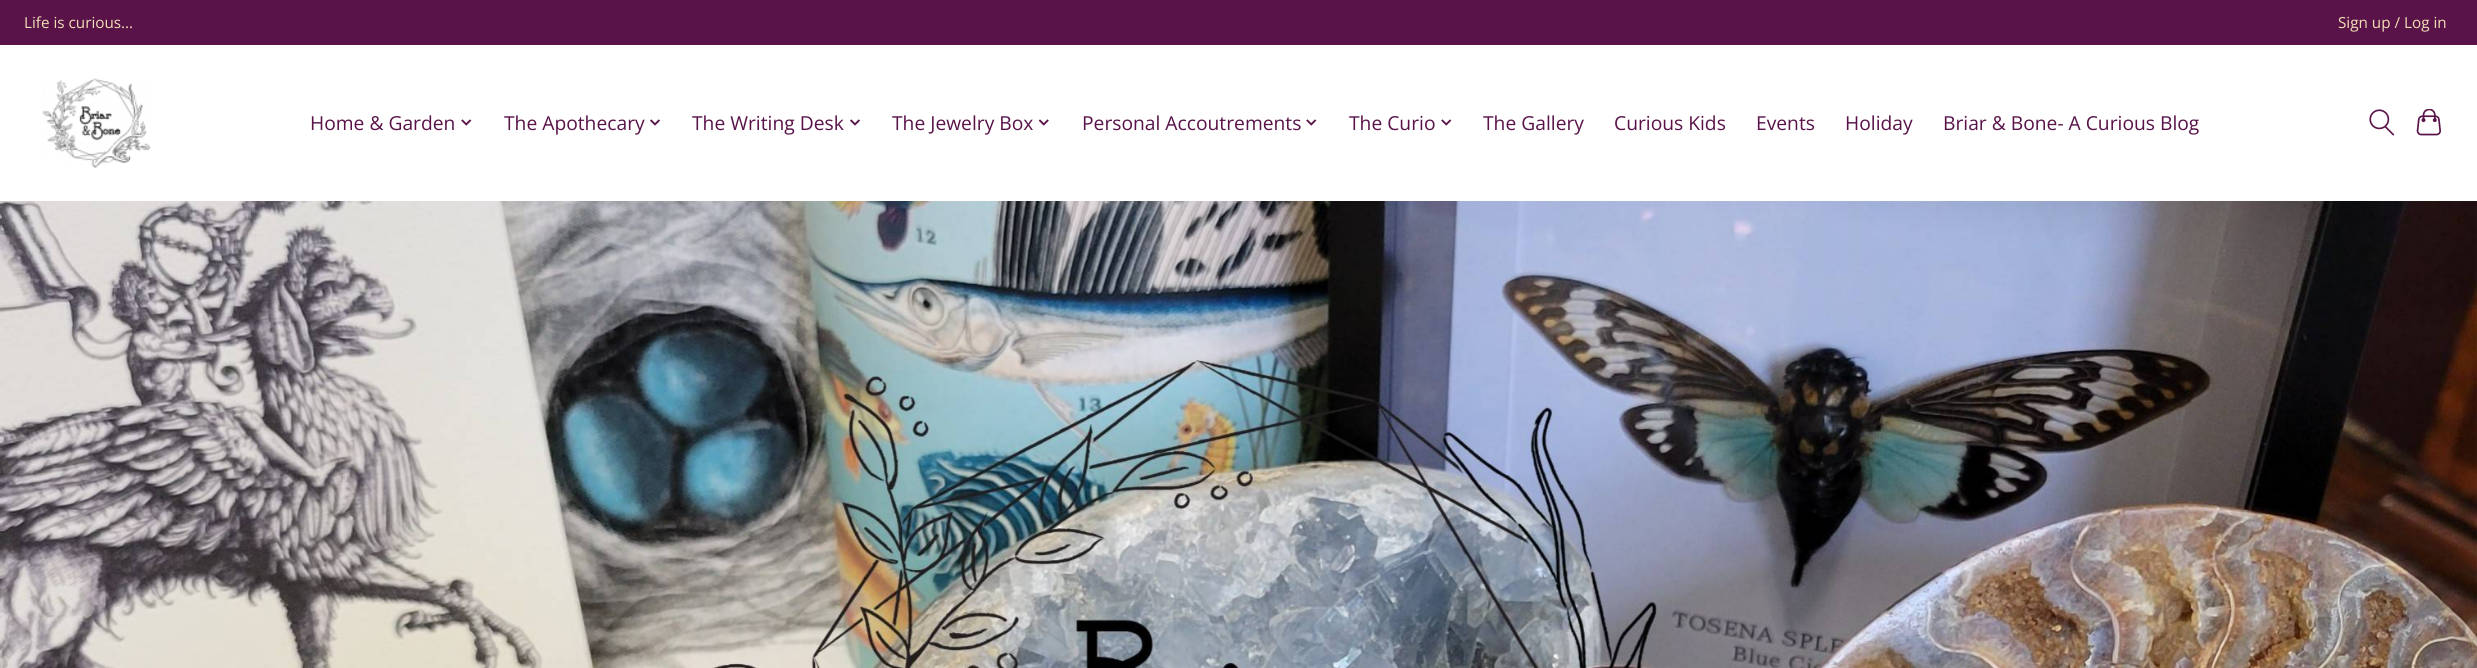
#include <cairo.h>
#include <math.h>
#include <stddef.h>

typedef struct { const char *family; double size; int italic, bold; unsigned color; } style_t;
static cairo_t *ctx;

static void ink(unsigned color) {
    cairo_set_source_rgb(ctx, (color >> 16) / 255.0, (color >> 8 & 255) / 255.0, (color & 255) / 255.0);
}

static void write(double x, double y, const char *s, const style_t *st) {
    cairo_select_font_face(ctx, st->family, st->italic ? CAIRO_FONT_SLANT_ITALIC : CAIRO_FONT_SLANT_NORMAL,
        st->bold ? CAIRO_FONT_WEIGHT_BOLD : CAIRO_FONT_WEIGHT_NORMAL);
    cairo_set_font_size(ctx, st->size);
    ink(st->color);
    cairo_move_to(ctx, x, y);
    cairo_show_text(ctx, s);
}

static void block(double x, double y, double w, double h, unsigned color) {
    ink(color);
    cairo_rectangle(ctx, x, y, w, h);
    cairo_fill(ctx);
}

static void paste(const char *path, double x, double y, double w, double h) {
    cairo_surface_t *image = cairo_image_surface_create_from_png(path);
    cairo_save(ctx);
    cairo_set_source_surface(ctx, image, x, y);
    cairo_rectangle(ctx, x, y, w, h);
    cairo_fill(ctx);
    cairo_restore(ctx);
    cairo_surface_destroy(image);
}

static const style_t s1 = {"Open Sans", 15.25, 0, 0, 0xf0deb5};
static const style_t s2 = {"Open Sans", 19.25, 0, 0, 0x591349};

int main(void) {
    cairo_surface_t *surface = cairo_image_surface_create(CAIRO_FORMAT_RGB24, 2477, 668);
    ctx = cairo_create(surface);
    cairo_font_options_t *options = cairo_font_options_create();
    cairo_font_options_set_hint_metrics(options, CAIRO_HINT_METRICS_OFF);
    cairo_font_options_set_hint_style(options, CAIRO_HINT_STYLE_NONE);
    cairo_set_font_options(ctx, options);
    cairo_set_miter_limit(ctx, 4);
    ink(0xffffff);
    cairo_paint(ctx);
    block(0, 0, 2477, 45, 0x591349);
    write(24, 28, "Life is curious...", &s1);
    write(2338, 28, "Sign up / Log in", &s1);
    paste("pic1.png", 42, 78, 109, 90);
    write(310, 130, "Home & Garden", &s2);
    paste("pic2.png", 461, 119, 11, 7);
    write(504, 130, "The Apothecary", &s2);
    paste("pic3.png", 650, 119, 10, 7);
    write(692, 130, "The Writing Desk", &s2);
    paste("pic3.png", 850, 119, 10, 7);
    write(892, 130, "The Jewelry Box", &s2);
    paste("pic4.png", 1038, 119, 11, 7);
    write(1082, 130, "Personal Accoutrements", &s2);
    paste("pic2.png", 1306, 119, 11, 7);
    write(1349, 130, "The Curio", &s2);
    paste("pic2.png", 1441, 119, 11, 7);
    write(1483, 130, "The Gallery", &s2);
    write(1614, 130, "Curious Kids", &s2);
    write(1756, 130, "Events", &s2);
    write(1845, 130, "Holiday", &s2);
    write(1943, 130, "Briar & Bone- A Curious Blog", &s2);
    paste("pic5.png", 2369, 109, 26, 27);
    paste("pic6.png", 2416, 109, 25, 27);
    paste("pic7.png", 0, 201, 2477, 467);
    cairo_surface_write_to_png(surface, "screenshot.png");
    cairo_font_options_destroy(options);
    cairo_destroy(ctx);
    cairo_surface_destroy(surface);
    return 0;
}
